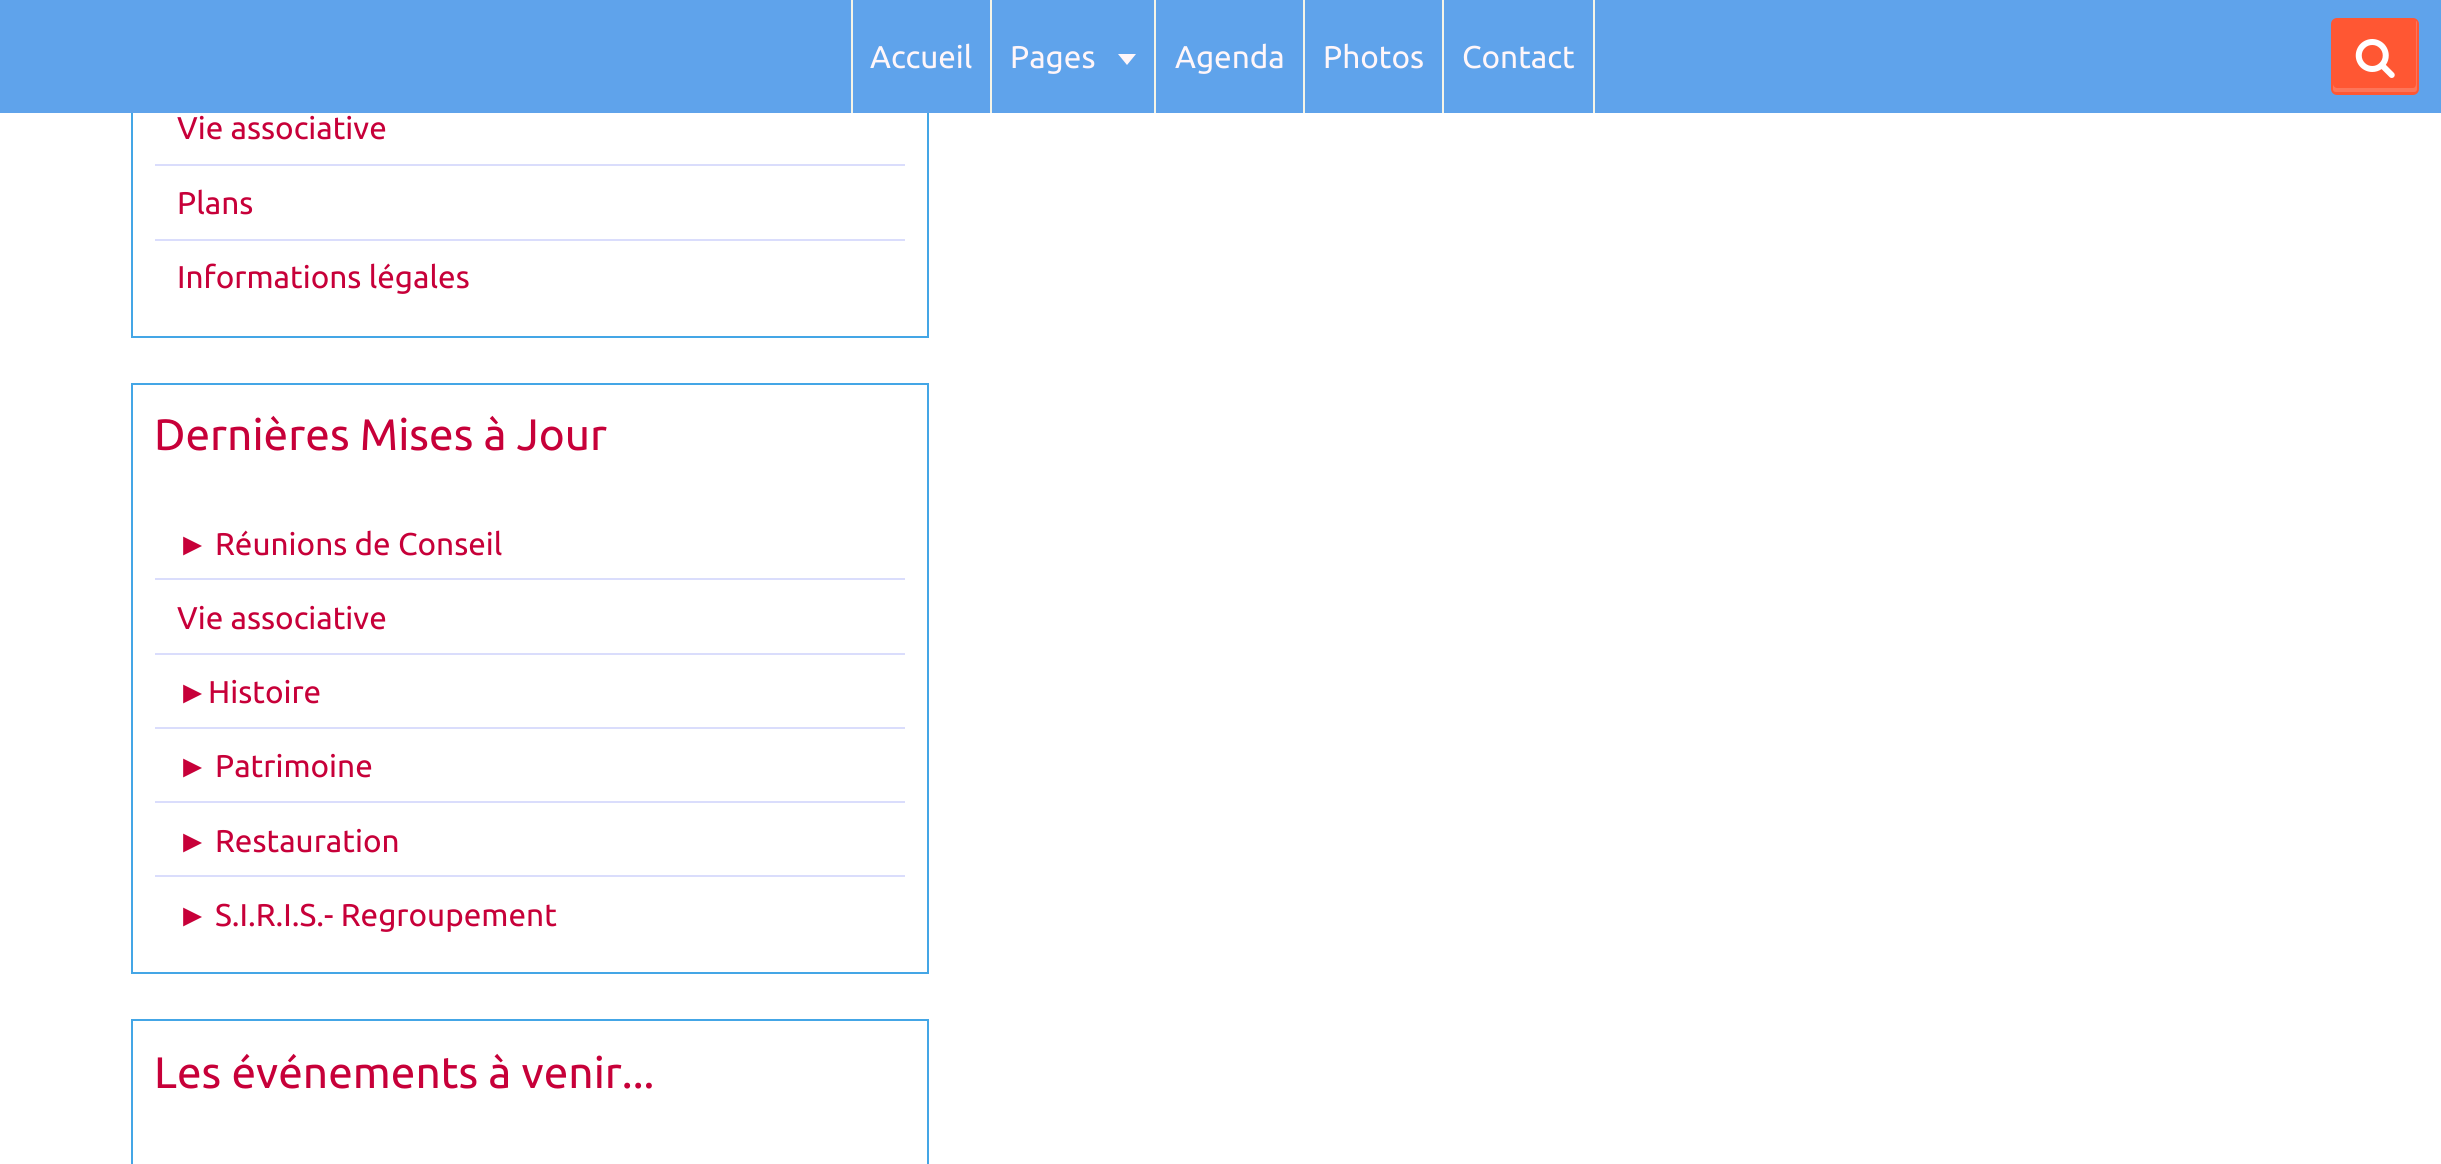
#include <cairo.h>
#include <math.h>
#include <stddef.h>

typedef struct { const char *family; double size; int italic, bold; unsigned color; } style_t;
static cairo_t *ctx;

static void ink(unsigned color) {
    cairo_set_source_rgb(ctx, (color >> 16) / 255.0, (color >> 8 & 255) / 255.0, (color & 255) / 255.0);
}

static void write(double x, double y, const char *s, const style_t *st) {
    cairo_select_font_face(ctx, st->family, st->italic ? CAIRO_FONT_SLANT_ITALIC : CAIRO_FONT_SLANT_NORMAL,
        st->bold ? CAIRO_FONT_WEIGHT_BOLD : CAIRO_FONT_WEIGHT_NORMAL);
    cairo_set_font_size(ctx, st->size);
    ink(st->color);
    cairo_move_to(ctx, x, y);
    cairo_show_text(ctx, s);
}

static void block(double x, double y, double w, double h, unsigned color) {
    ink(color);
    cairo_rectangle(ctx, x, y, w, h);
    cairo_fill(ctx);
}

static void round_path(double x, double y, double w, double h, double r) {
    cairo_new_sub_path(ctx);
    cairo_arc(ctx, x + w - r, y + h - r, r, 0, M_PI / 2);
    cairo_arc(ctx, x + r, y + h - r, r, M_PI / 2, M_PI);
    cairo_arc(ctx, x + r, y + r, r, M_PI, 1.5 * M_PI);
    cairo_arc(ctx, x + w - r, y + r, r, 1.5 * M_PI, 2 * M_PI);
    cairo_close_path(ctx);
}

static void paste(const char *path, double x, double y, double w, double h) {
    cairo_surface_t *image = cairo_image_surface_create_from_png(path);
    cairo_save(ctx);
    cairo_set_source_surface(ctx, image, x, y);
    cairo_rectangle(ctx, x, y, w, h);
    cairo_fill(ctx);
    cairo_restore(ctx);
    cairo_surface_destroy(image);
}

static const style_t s1 = {"Ubuntu", 31.5, 0, 0, 0xfff6f9};
static const style_t s2 = {"Ubuntu", 31.5, 0, 0, 0xc70039};
static const style_t s3 = {"Ubuntu", 44.1, 0, 0, 0xc70039};
static const style_t s4 = {"Liberation Serif", 31.5, 0, 0, 0xc70039};

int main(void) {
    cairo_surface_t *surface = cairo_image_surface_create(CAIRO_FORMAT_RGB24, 2441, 1164);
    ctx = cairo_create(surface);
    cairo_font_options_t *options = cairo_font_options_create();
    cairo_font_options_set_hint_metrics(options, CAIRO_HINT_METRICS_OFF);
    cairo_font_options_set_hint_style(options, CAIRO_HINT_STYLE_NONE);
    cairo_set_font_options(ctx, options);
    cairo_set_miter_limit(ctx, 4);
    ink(0xffffff);
    cairo_paint(ctx);
    cairo_rectangle(ctx, 132, -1, 796, 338);
    ink(0x44a6e6);
    cairo_stroke(ctx);
    block(0, 0, 2441, 113, 0x5fa3eb);
    block(990, 0, 2, 113, 0xf5f4e7);
    block(851, 0, 2, 113, 0xf5f4e7);
    write(870, 68, "Accueil", &s1);
    block(1154, 0, 2, 113, 0xf5f4e7);
    write(1010, 68, "Pages", &s1);
    cairo_new_path(ctx);
    cairo_move_to(ctx, 1118, 54);
    cairo_line_to(ctx, 1136, 54);
    cairo_line_to(ctx, 1127, 65);
    cairo_close_path(ctx);
    cairo_fill(ctx);
    block(1303, 0, 2, 113, 0xf5f4e7);
    write(1175, 68, "Agenda", &s1);
    block(1442, 0, 2, 113, 0xf5f4e7);
    write(1323, 68, "Photos", &s1);
    block(1593, 0, 2, 113, 0xf5f4e7);
    write(1462, 68, "Contact", &s1);
    ink(0xff5733);
    round_path(2331, 18, 88, 77, 6);
    cairo_fill(ctx);
    ink(0xfd7559);
    cairo_new_path(ctx);
    cairo_move_to(ctx, 2333, 84);
    cairo_line_to(ctx, 2333, 89);
    cairo_curve_to(ctx, 2333, 91, 2334, 92, 2336, 92);
    cairo_line_to(ctx, 2414, 92);
    cairo_curve_to(ctx, 2416, 92, 2417, 91, 2417, 89);
    cairo_line_to(ctx, 2417, 23);
    cairo_curve_to(ctx, 2417, 22, 2417, 21, 2416, 21);
    cairo_line_to(ctx, 2416, 84);
    cairo_curve_to(ctx, 2416, 86, 2415, 88, 2413, 88);
    cairo_line_to(ctx, 2337, 88);
    cairo_curve_to(ctx, 2335, 88, 2333, 86, 2333, 84);
    cairo_close_path(ctx);
    cairo_fill(ctx);
    paste("pic1.png", 2355, 39, 40, 39);
    block(155, 164, 750, 2, 0xdaddfc);
    write(177, 139, "Vie associative", &s2);
    block(155, 239, 750, 2, 0xdaddfc);
    write(177, 214, "Plans", &s2);
    write(177, 288, "Informations légales", &s2);
    cairo_rectangle(ctx, 132, 384, 796, 589);
    ink(0x44a6e6);
    cairo_stroke(ctx);
    write(154, 450, "Dernières Mises à Jour", &s3);
    block(155, 578, 750, 2, 0xdaddfc);
    write(177, 555, "►", &s4);
    write(215, 555, "Réunions de Conseil", &s2);
    block(155, 653, 750, 2, 0xdaddfc);
    write(177, 629, "Vie associative", &s2);
    block(155, 727, 750, 2, 0xdaddfc);
    write(177, 703, "►", &s4);
    write(208, 703, "Histoire", &s2);
    block(155, 801, 750, 2, 0xdaddfc);
    write(177, 777, "►", &s4);
    write(215, 777, "Patrimoine", &s2);
    block(155, 875, 750, 2, 0xdaddfc);
    write(177, 852, "►", &s4);
    write(215, 852, "Restauration", &s2);
    write(177, 926, "►", &s4);
    write(215, 926, "S.I.R.I.S.- Regroupement", &s2);
    cairo_rectangle(ctx, 132, 1020, 796, 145);
    ink(0x44a6e6);
    cairo_stroke(ctx);
    write(154, 1088, "Les événements à venir...", &s3);
    cairo_surface_write_to_png(surface, "screenshot.png");
    cairo_font_options_destroy(options);
    cairo_destroy(ctx);
    cairo_surface_destroy(surface);
    return 0;
}
